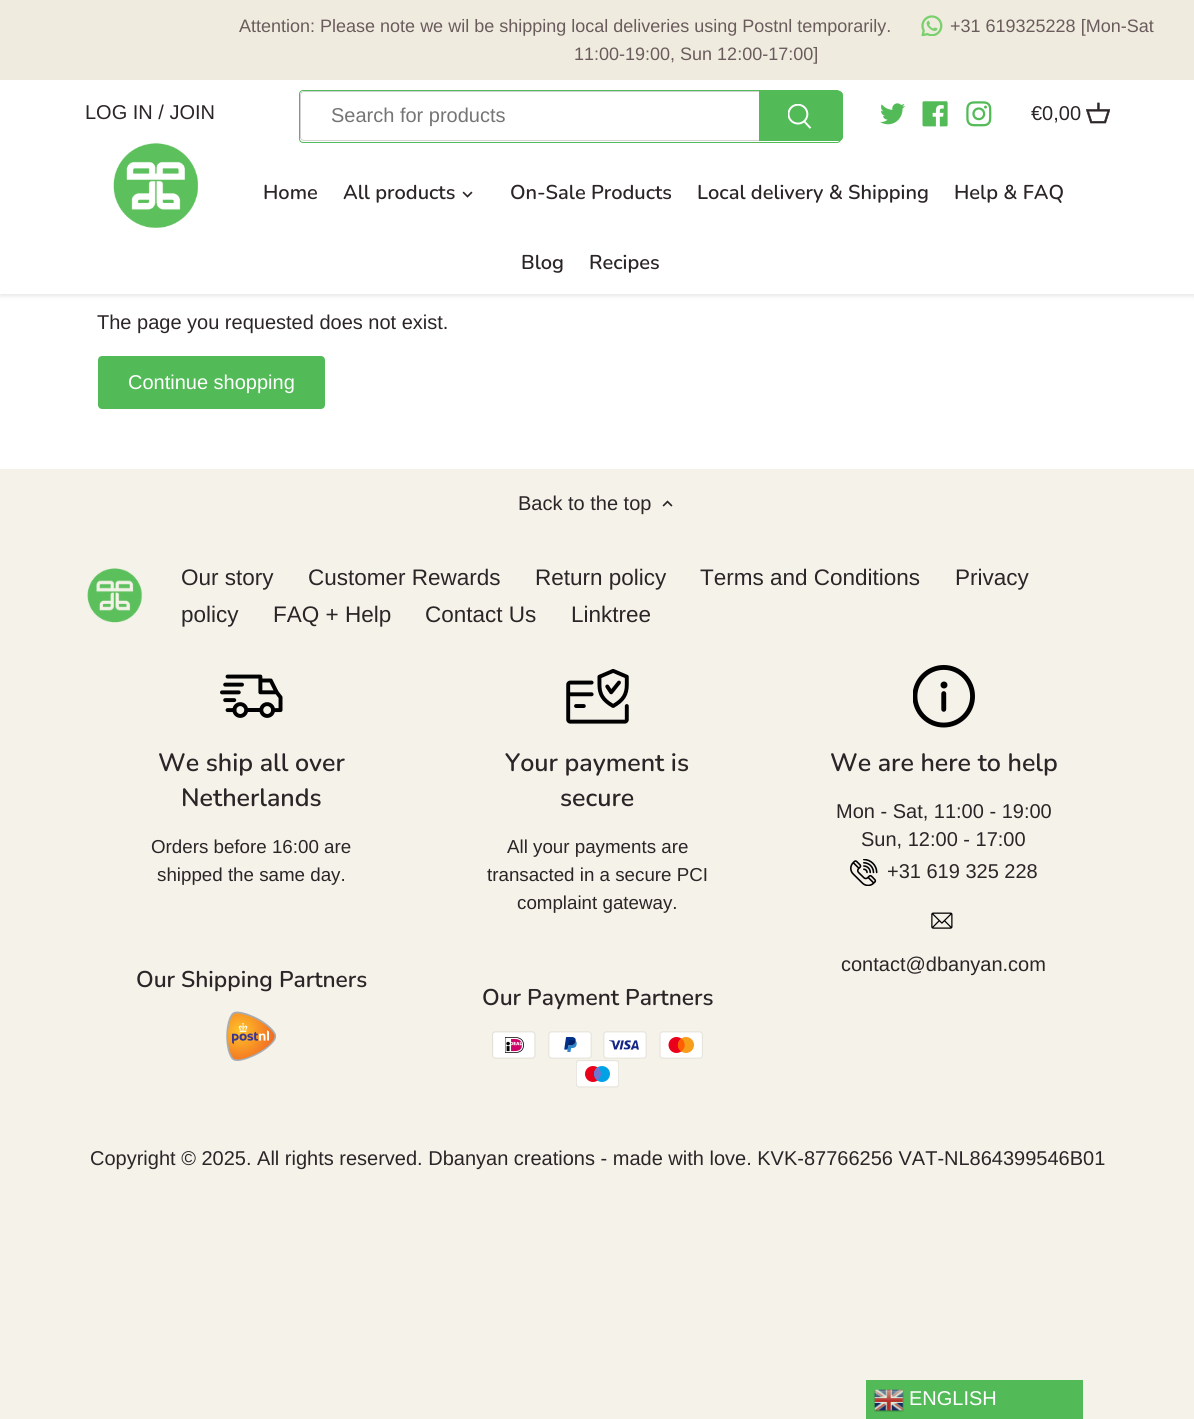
#include <cairo.h>
#include <math.h>
#include <stddef.h>

typedef struct { const char *family; double size; int italic, bold; unsigned color; } style_t;
static cairo_t *ctx;

static void ink(unsigned color) {
    cairo_set_source_rgb(ctx, (color >> 16) / 255.0, (color >> 8 & 255) / 255.0, (color & 255) / 255.0);
}

static void write(double x, double y, const char *s, const style_t *st) {
    cairo_select_font_face(ctx, st->family, st->italic ? CAIRO_FONT_SLANT_ITALIC : CAIRO_FONT_SLANT_NORMAL,
        st->bold ? CAIRO_FONT_WEIGHT_BOLD : CAIRO_FONT_WEIGHT_NORMAL);
    cairo_set_font_size(ctx, st->size);
    ink(st->color);
    cairo_move_to(ctx, x, y);
    cairo_show_text(ctx, s);
}

static void block(double x, double y, double w, double h, unsigned color) {
    ink(color);
    cairo_rectangle(ctx, x, y, w, h);
    cairo_fill(ctx);
}

static void round_path(double x, double y, double w, double h, double r) {
    cairo_new_sub_path(ctx);
    cairo_arc(ctx, x + w - r, y + h - r, r, 0, M_PI / 2);
    cairo_arc(ctx, x + r, y + h - r, r, M_PI / 2, M_PI);
    cairo_arc(ctx, x + r, y + r, r, M_PI, 1.5 * M_PI);
    cairo_arc(ctx, x + w - r, y + r, r, 1.5 * M_PI, 2 * M_PI);
    cairo_close_path(ctx);
}

static void blur_box(double x, double y, double w, double h, double r, double blur, double alpha) {
    cairo_push_group_with_content(ctx, CAIRO_CONTENT_ALPHA);
    cairo_set_operator(ctx, CAIRO_OPERATOR_SOURCE);
    for (int i = 15; i >= -15 && fmin(w, h) + blur * i / 3 > 0; i -= 2) {
        double e = blur * i / 6;
        cairo_set_source_rgba(ctx, 0, 0, 0, alpha * erfc((i - 1) / 8.5) / 2);
        round_path(x - e, y - e, w + 2 * e, h + 2 * e, fmax(0, fmin(r + e + blur * .6, fmin(w, h) / 2 + e)));
        cairo_fill(ctx);
    }
    cairo_pattern_t *soft = cairo_pop_group(ctx);
    cairo_mask(ctx, soft);
    cairo_pattern_destroy(soft);
}

static void paste(const char *path, double x, double y, double w, double h) {
    cairo_surface_t *image = cairo_image_surface_create_from_png(path);
    cairo_save(ctx);
    cairo_set_source_surface(ctx, image, x, y);
    cairo_rectangle(ctx, x, y, w, h);
    cairo_fill(ctx);
    cairo_restore(ctx);
    cairo_surface_destroy(image);
}

static const style_t s1 = {"Liberation Sans", 18, 0, 0, 0x6a5b5c};
static const style_t s2 = {"Liberation Sans", 20, 0, 0, 0x2c2528};
static const style_t s3 = {"Liberation Sans", 20, 0, 0, 0x757575};
static const style_t s4 = {"Liberation Sans", 20, 0, 0, 0xffffff};
static const style_t s5 = {"Nunito SemiBold", 20, 0, 0, 0x2c2528};
static const style_t s6 = {"Liberation Sans", 22.5, 0, 0, 0x2c2528};
static const style_t s7 = {"Nunito SemiBold", 25, 0, 0, 0x2c2528};
static const style_t s8 = {"Liberation Sans", 18.75, 0, 0, 0x2c2528};
static const style_t s9 = {"Nunito SemiBold", 22.75, 0, 0, 0x2c2528};

int main(void) {
    cairo_surface_t *surface = cairo_image_surface_create(CAIRO_FORMAT_RGB24, 1194, 1419);
    ctx = cairo_create(surface);
    cairo_font_options_t *options = cairo_font_options_create();
    cairo_font_options_set_hint_metrics(options, CAIRO_HINT_METRICS_OFF);
    cairo_font_options_set_hint_style(options, CAIRO_HINT_STYLE_NONE);
    cairo_set_font_options(ctx, options);
    cairo_set_miter_limit(ctx, 4);
    ink(0xf4f2e9);
    cairo_paint(ctx);
    block(0, 294, 1194, 175, 0xffffff);
    ink(0x000000);
    blur_box(0, 3, 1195, 293, 0, 2.5, 0.1);
    block(0, 80, 1194, 214, 0xffffff);
    block(0, 0, 1194, 80, 0xefecdf);
    write(239, 32, "Attention: Please note we wil be shipping local deliveries using Postnl temporarily.", &s1);
    paste("pic1.png", 921, 15, 22, 21);
    write(950, 32, "+31 619325228 [Mon-Sat", &s1);
    write(574, 60, "11:00-19:00, Sun 12:00-17:00]", &s1);
    paste("pic2.png", 880, 103, 25, 22);
    paste("pic3.png", 922, 101, 26, 26);
    paste("pic4.png", 966, 101, 26, 26);
    write(85, 119, "LOG IN / JOIN", &s2);
    round_path(299.5, 90.5, 541, 52, 3.5);
    ink(0x52bb57);
    cairo_set_line_width(ctx, 1);
    cairo_stroke(ctx);
    round_path(300.5, 91.5, 539, 49, 3.5);
    ink(0xd3d1d2);
    cairo_stroke(ctx);
    write(331, 122, "Search for products", &s3);
    ink(0x52bb57);
    cairo_new_path(ctx);
    cairo_move_to(ctx, 759.5, 91.5);
    cairo_line_to(ctx, 839, 91.5);
    cairo_curve_to(ctx, 841, 91.5, 842.5, 93, 842.5, 95);
    cairo_line_to(ctx, 842.5, 137);
    cairo_curve_to(ctx, 842.5, 139, 841, 140.5, 839, 140.5);
    cairo_line_to(ctx, 759.5, 140.5);
    cairo_close_path(ctx);
    cairo_fill_preserve(ctx);
    cairo_stroke(ctx);
    paste("pic5.png", 788, 104, 24, 25);
    block(866, 1380, 217, 39, 0x52bb57);
    paste("pic6.png", 873, 1389, 31, 23);
    write(909, 1405, "ENGLISH", &s4);
    write(1031, 120, "€0,00", &s2);
    paste("pic7.png", 1086, 102, 24, 22);
    paste("pic8.png", 113, 143, 85, 85);
    write(263, 199, "Home", &s5);
    write(343, 199, "All products", &s5);
    paste("pic9.png", 462, 191, 11, 7);
    write(510, 199, "On-Sale Products", &s5);
    write(697, 199, "Local delivery & Shipping", &s5);
    write(954, 199, "Help & FAQ", &s5);
    write(521, 269, "Blog", &s5);
    write(589, 269, "Recipes", &s5);
    write(97, 329, "The page you requested does not exist.", &s2);
    ink(0x52bb57);
    round_path(99.5, 357.5, 224, 50, 2.5);
    cairo_fill_preserve(ctx);
    cairo_set_line_width(ctx, 3);
    cairo_stroke(ctx);
    write(128, 389, "Continue shopping", &s4);
    write(518, 510, "Back to the top", &s2);
    paste("pic10.png", 662, 500, 11, 7);
    paste("pic11.png", 87, 568, 56, 55);
    write(181, 585, "Our story", &s6);
    write(308, 585, "Customer Rewards", &s6);
    write(535, 585, "Return policy", &s6);
    write(700, 585, "Terms and Conditions", &s6);
    write(955, 585, "Privacy", &s6);
    write(181, 622, "policy", &s6);
    write(273, 622, "FAQ + Help", &s6);
    write(425, 622, "Contact Us", &s6);
    write(571, 622, "Linktree", &s6);
    paste("pic12.png", 220, 674, 63, 44);
    write(158, 771, "We ship all over", &s7);
    write(181, 806, "Netherlands", &s7);
    write(151, 853, "Orders before 16:00 are", &s8);
    write(157, 881, "shipped the same day.", &s8);
    write(136, 987, "Our Shipping Partners", &s9);
    paste("pic13.png", 226, 1011, 50, 50);
    paste("pic14.png", 566, 668, 63, 56);
    write(505, 771, "Your payment is", &s7);
    write(560, 806, "secure", &s7);
    write(507, 853, "All your payments are", &s8);
    write(487, 881, "transacted in a secure PCI", &s8);
    write(517, 909, "complaint gateway.", &s8);
    write(482, 1005, "Our Payment Partners", &s9);
    paste("pic15.png", 492, 1031, 44, 28);
    paste("pic16.png", 548, 1031, 44, 28);
    paste("pic17.png", 603, 1031, 44, 28);
    paste("pic18.png", 659, 1031, 44, 28);
    paste("pic19.png", 576, 1060, 43, 28);
    paste("pic20.png", 913, 665, 62, 63);
    write(830, 771, "We are here to help", &s7);
    write(836, 818, "Mon - Sat, 11:00 - 19:00", &s2);
    write(861, 846, "Sun, 12:00 - 17:00", &s2);
    paste("pic21.png", 850, 859, 28, 27);
    write(887, 878, "+31 619 325 228", &s2);
    paste("pic22.png", 931, 912, 22, 17);
    write(841, 971, "contact@dbanyan.com", &s2);
    write(90, 1165, "Copyright © 2025. All rights reserved. Dbanyan creations - made with love. KVK-87766256 VAT-NL864399546B01", &s2);
    cairo_surface_write_to_png(surface, "screenshot.png");
    cairo_font_options_destroy(options);
    cairo_destroy(ctx);
    cairo_surface_destroy(surface);
    return 0;
}
